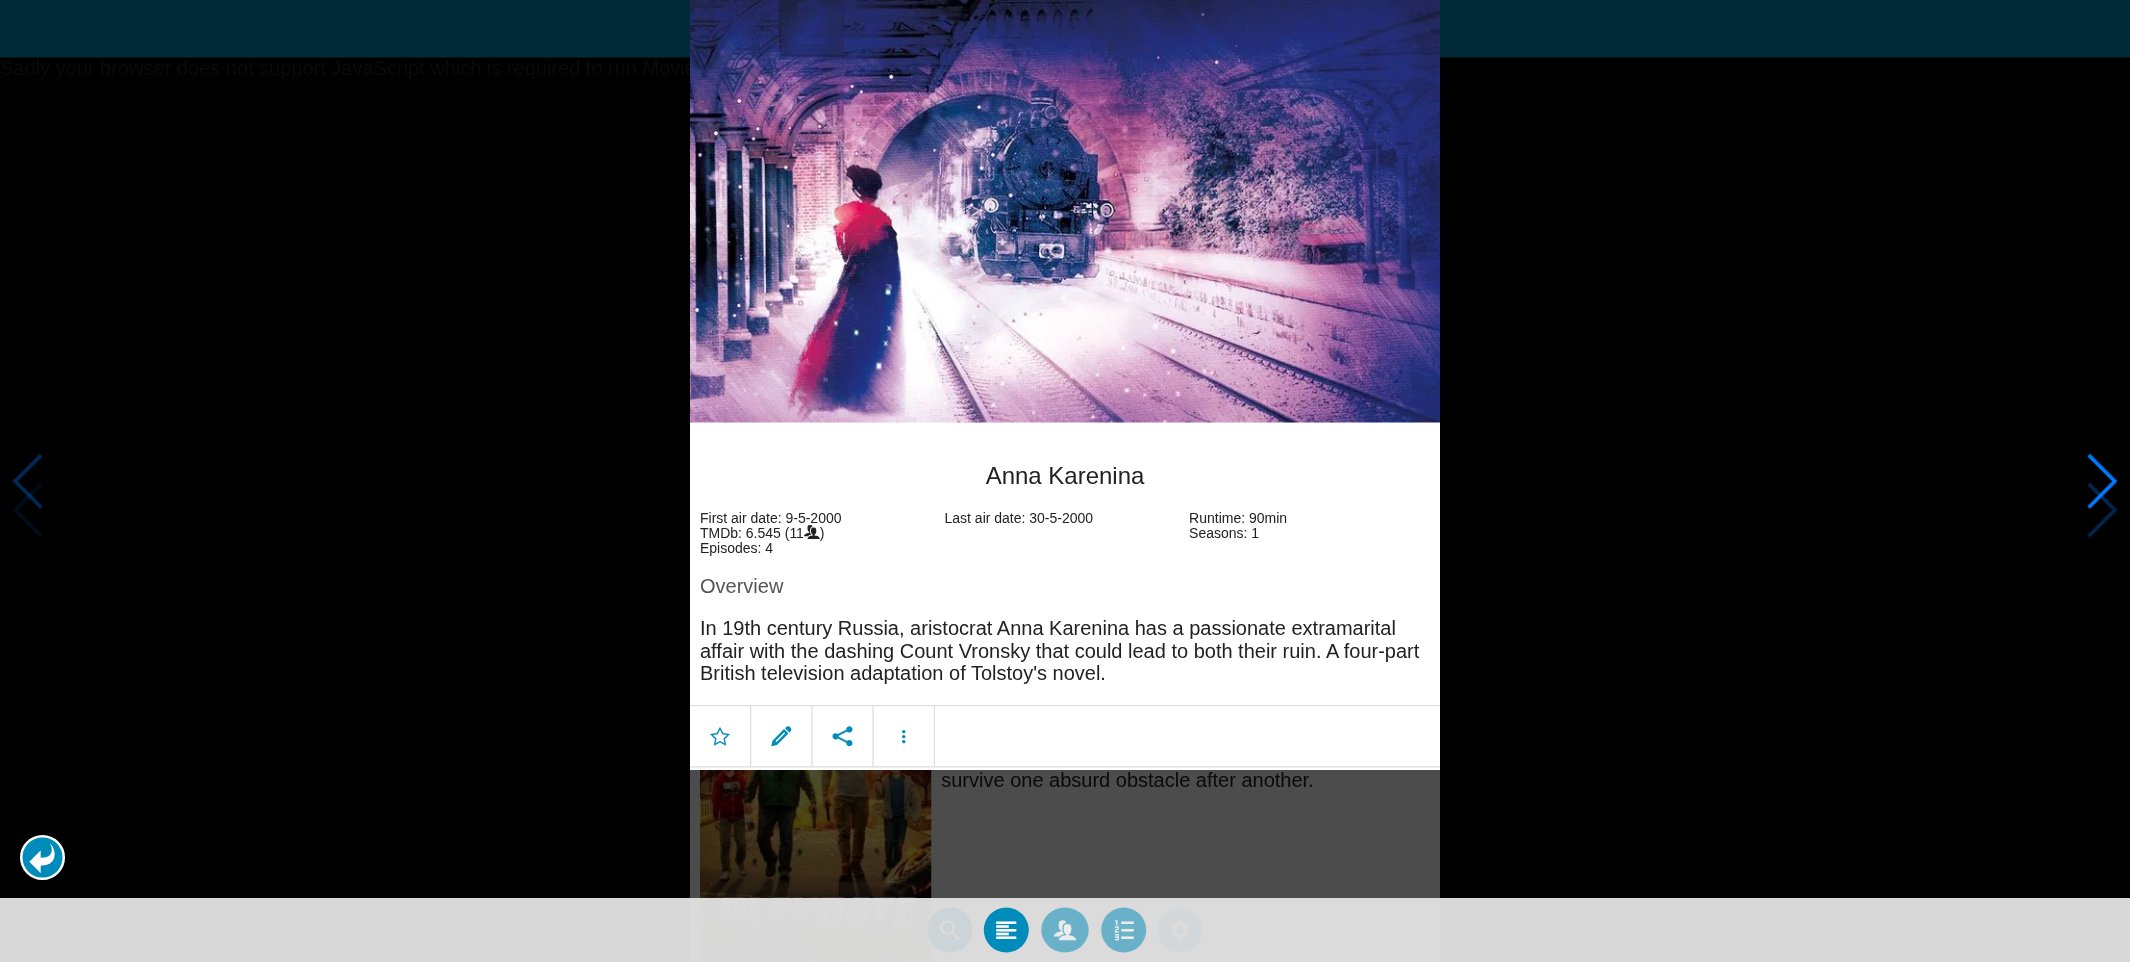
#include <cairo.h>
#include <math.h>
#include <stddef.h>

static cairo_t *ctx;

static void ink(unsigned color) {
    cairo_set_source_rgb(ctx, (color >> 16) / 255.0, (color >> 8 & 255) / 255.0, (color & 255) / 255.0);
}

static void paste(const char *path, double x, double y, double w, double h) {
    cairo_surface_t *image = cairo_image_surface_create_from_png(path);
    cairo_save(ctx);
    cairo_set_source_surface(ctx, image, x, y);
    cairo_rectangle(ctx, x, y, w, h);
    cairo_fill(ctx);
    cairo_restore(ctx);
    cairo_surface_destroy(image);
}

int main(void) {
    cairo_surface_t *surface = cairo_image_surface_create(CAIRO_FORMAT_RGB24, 2130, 962);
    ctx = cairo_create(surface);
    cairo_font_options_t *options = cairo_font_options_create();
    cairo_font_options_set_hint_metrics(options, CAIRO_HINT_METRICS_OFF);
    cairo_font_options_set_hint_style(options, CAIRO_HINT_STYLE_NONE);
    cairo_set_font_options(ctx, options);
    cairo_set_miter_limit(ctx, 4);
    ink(0xffffff);
    cairo_paint(ctx);
    paste("pic1.png", 0, 0, 2130, 962);
    cairo_surface_write_to_png(surface, "screenshot.png");
    cairo_font_options_destroy(options);
    cairo_destroy(ctx);
    cairo_surface_destroy(surface);
    return 0;
}
